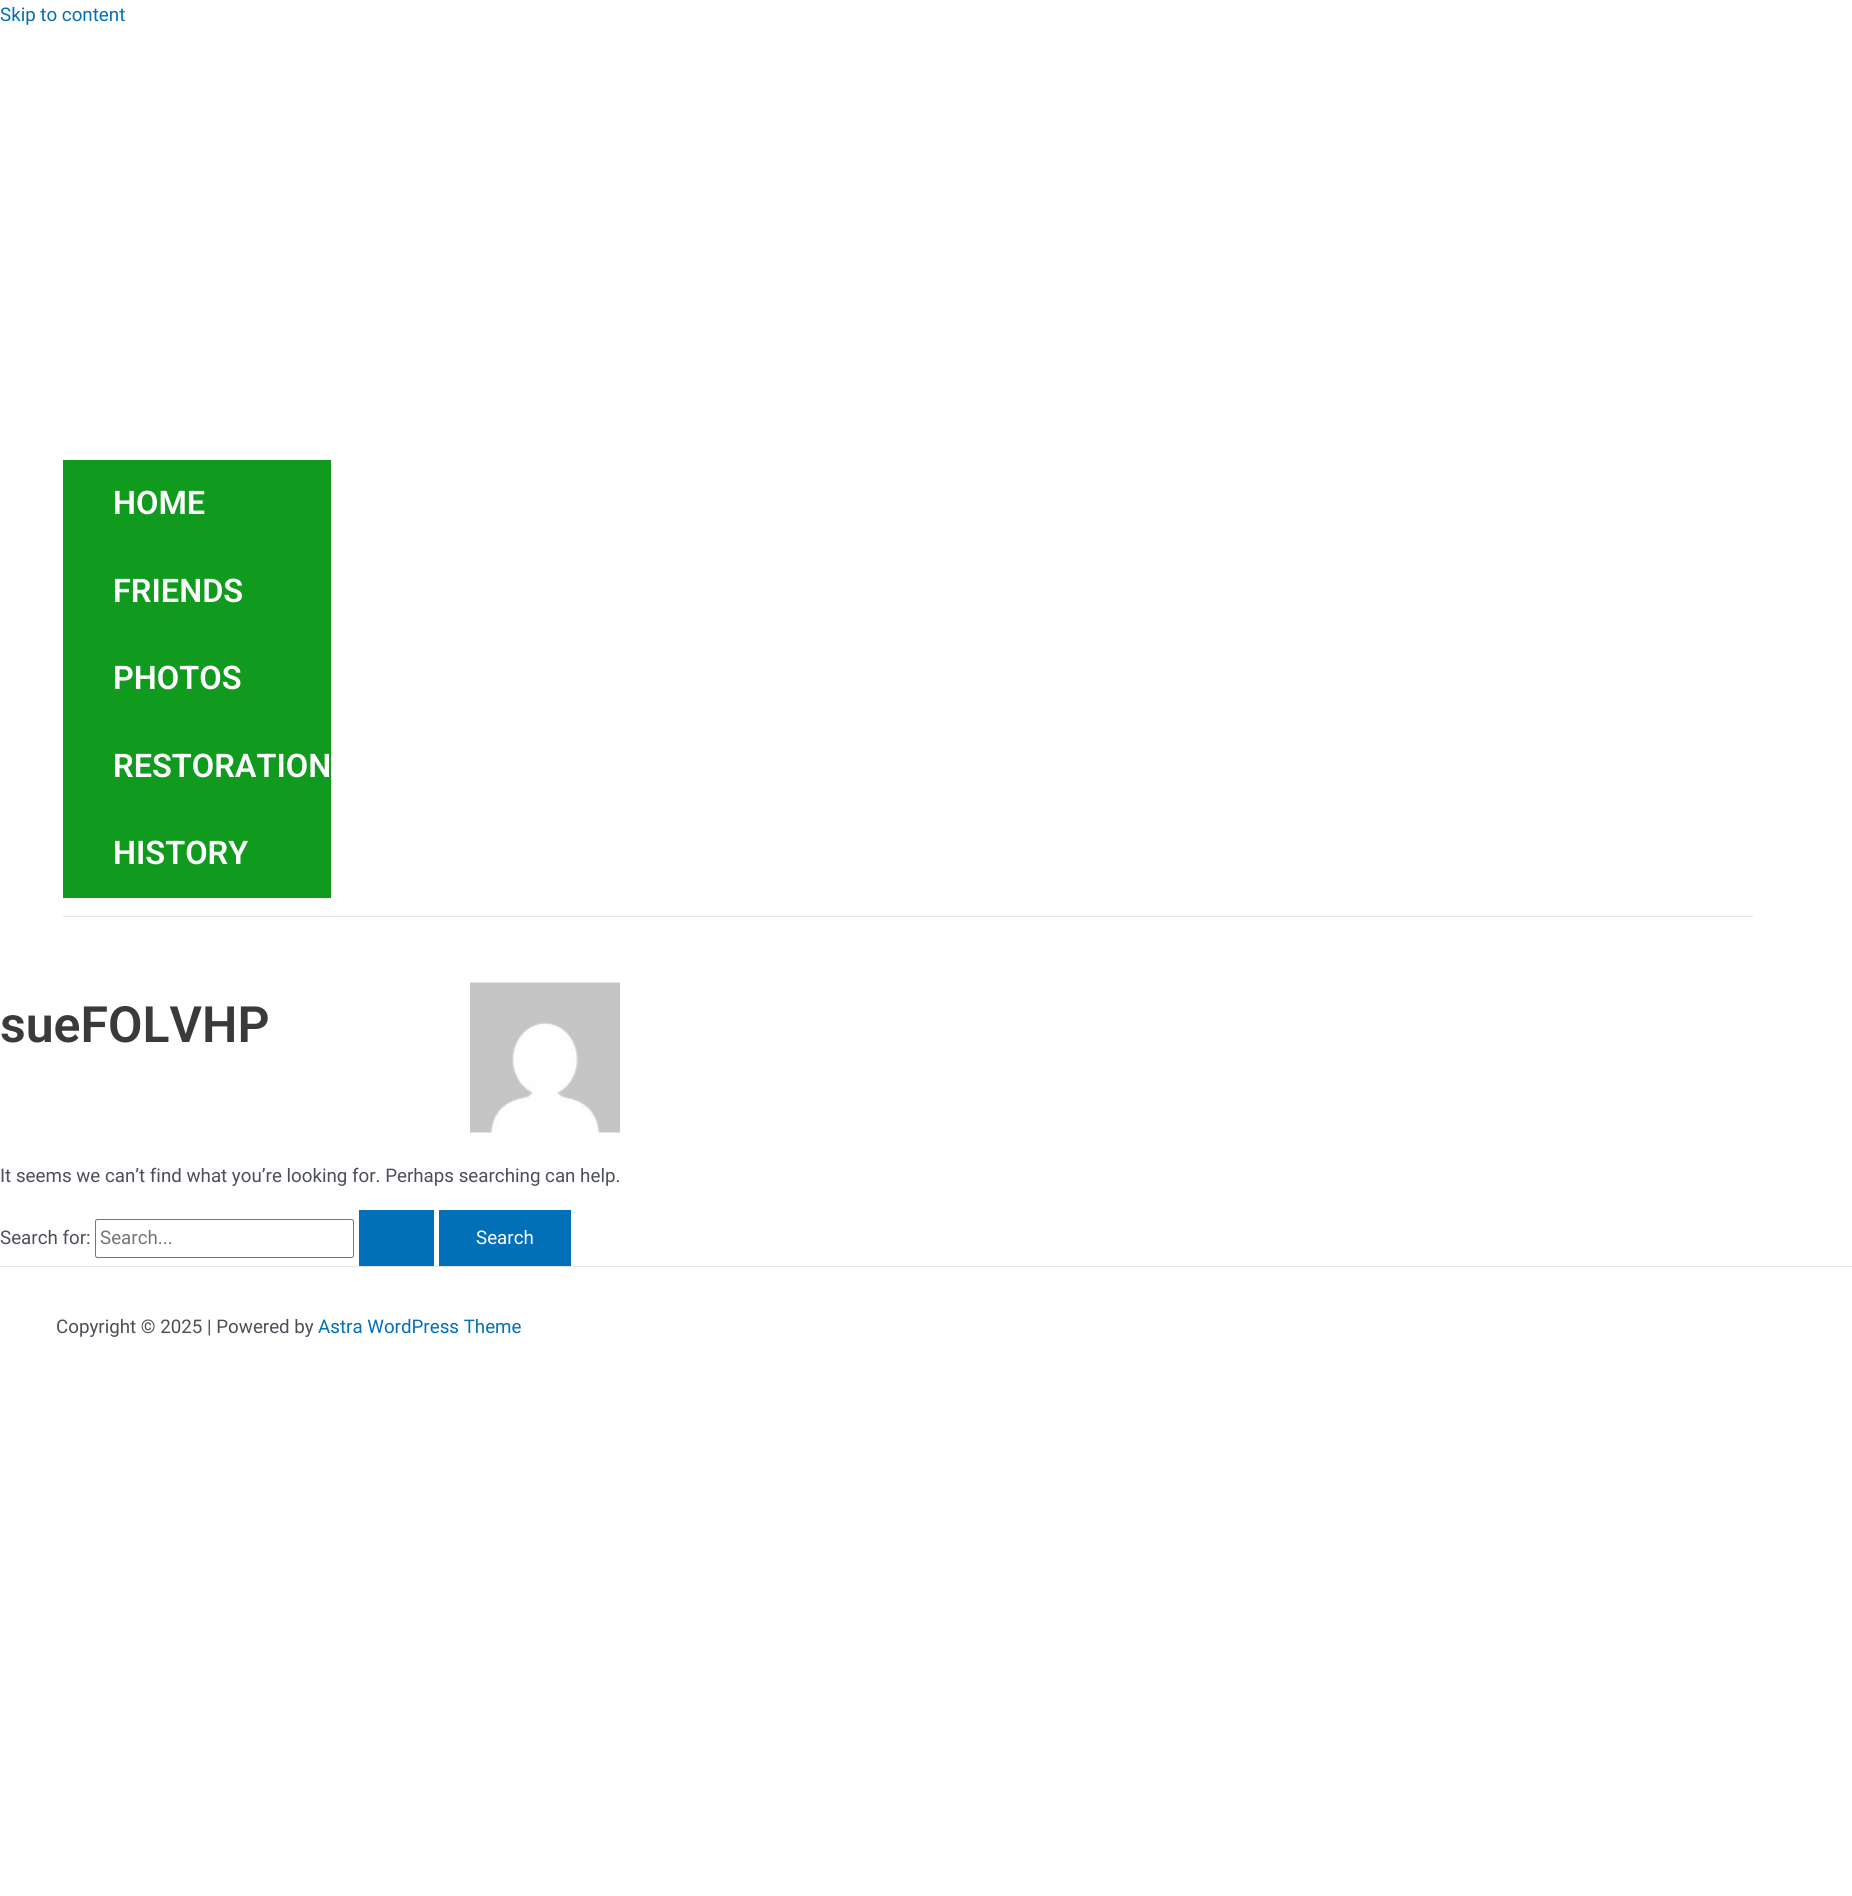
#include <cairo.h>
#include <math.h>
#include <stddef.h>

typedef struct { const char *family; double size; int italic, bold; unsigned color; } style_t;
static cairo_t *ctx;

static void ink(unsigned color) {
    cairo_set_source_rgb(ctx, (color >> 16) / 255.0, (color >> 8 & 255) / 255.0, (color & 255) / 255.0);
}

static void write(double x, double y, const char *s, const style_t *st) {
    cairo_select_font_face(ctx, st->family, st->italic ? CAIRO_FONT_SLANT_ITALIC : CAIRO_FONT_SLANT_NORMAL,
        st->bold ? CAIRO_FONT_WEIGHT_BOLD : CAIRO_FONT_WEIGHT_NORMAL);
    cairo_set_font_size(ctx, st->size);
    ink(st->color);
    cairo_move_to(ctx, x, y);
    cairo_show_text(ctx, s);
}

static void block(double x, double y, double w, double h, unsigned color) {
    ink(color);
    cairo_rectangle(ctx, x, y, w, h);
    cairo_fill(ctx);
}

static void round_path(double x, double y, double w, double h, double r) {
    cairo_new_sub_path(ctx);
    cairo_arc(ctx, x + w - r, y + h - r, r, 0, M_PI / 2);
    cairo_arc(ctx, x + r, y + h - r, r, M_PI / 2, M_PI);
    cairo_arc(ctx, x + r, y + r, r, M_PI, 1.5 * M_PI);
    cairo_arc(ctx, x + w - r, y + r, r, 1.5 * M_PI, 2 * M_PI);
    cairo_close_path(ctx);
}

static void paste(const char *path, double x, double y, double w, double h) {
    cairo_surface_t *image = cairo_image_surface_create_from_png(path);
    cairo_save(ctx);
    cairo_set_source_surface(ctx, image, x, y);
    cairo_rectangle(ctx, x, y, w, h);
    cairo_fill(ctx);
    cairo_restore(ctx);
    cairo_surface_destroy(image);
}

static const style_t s1 = {"Roboto", 18.75, 0, 0, 0x0170b9};
static const style_t s2 = {"Roboto SemiBold", 32.5, 0, 0, 0xffffff};
static const style_t s3 = {"Roboto SemiBold", 50, 0, 0, 0x3a3a3a};
static const style_t s4 = {"Roboto", 18.75, 0, 0, 0x4b4f58};
static const style_t s5 = {"Roboto", 18.75, 0, 0, 0x757575};
static const style_t s6 = {"Roboto", 18.75, 0, 0, 0xffffff};

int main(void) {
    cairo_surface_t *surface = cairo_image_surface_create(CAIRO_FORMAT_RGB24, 1852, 1896);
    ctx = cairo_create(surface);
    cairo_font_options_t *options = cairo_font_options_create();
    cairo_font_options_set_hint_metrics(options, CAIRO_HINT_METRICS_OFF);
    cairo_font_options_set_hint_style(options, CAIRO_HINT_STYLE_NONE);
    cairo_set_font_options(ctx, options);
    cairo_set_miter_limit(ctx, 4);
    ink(0xffffff);
    cairo_paint(ctx);
    write(0, 21, "Skip to content", &s1);
    block(63, 916, 1690, 1, 0xe5e5e5);
    block(63, 460, 268, 438, 0x109b1e);
    write(113, 514, "HOME", &s2);
    write(113, 602, "FRIENDS", &s2);
    write(113, 689, "PHOTOS", &s2);
    write(113, 777, "RESTORATION", &s2);
    write(113, 864, "HISTORY", &s2);
    write(0, 1042, "sueFOLVHP", &s3);
    paste("pic1.png", 470, 982, 150, 151);
    write(0, 1182, "It seems we can’t find what you’re looking for. Perhaps searching can help.", &s4);
    write(0, 1244, "Search for:", &s4);
    round_path(95.5, 1219.5, 258, 38, 2);
    ink(0x767676);
    cairo_set_line_width(ctx, 1);
    cairo_stroke(ctx);
    write(100, 1244, "Search...", &s5);
    block(359, 1210, 75, 56, 0x0170b9);
    block(439, 1210, 132, 56, 0x0170b9);
    write(476, 1244, "Search", &s6);
    block(0, 1266, 1852, 1, 0xe5e5e5);
    write(56, 1333, "Copyright © 2025 | Powered by", &s4);
    write(318, 1333, "Astra WordPress Theme", &s1);
    cairo_surface_write_to_png(surface, "screenshot.png");
    cairo_font_options_destroy(options);
    cairo_destroy(ctx);
    cairo_surface_destroy(surface);
    return 0;
}
